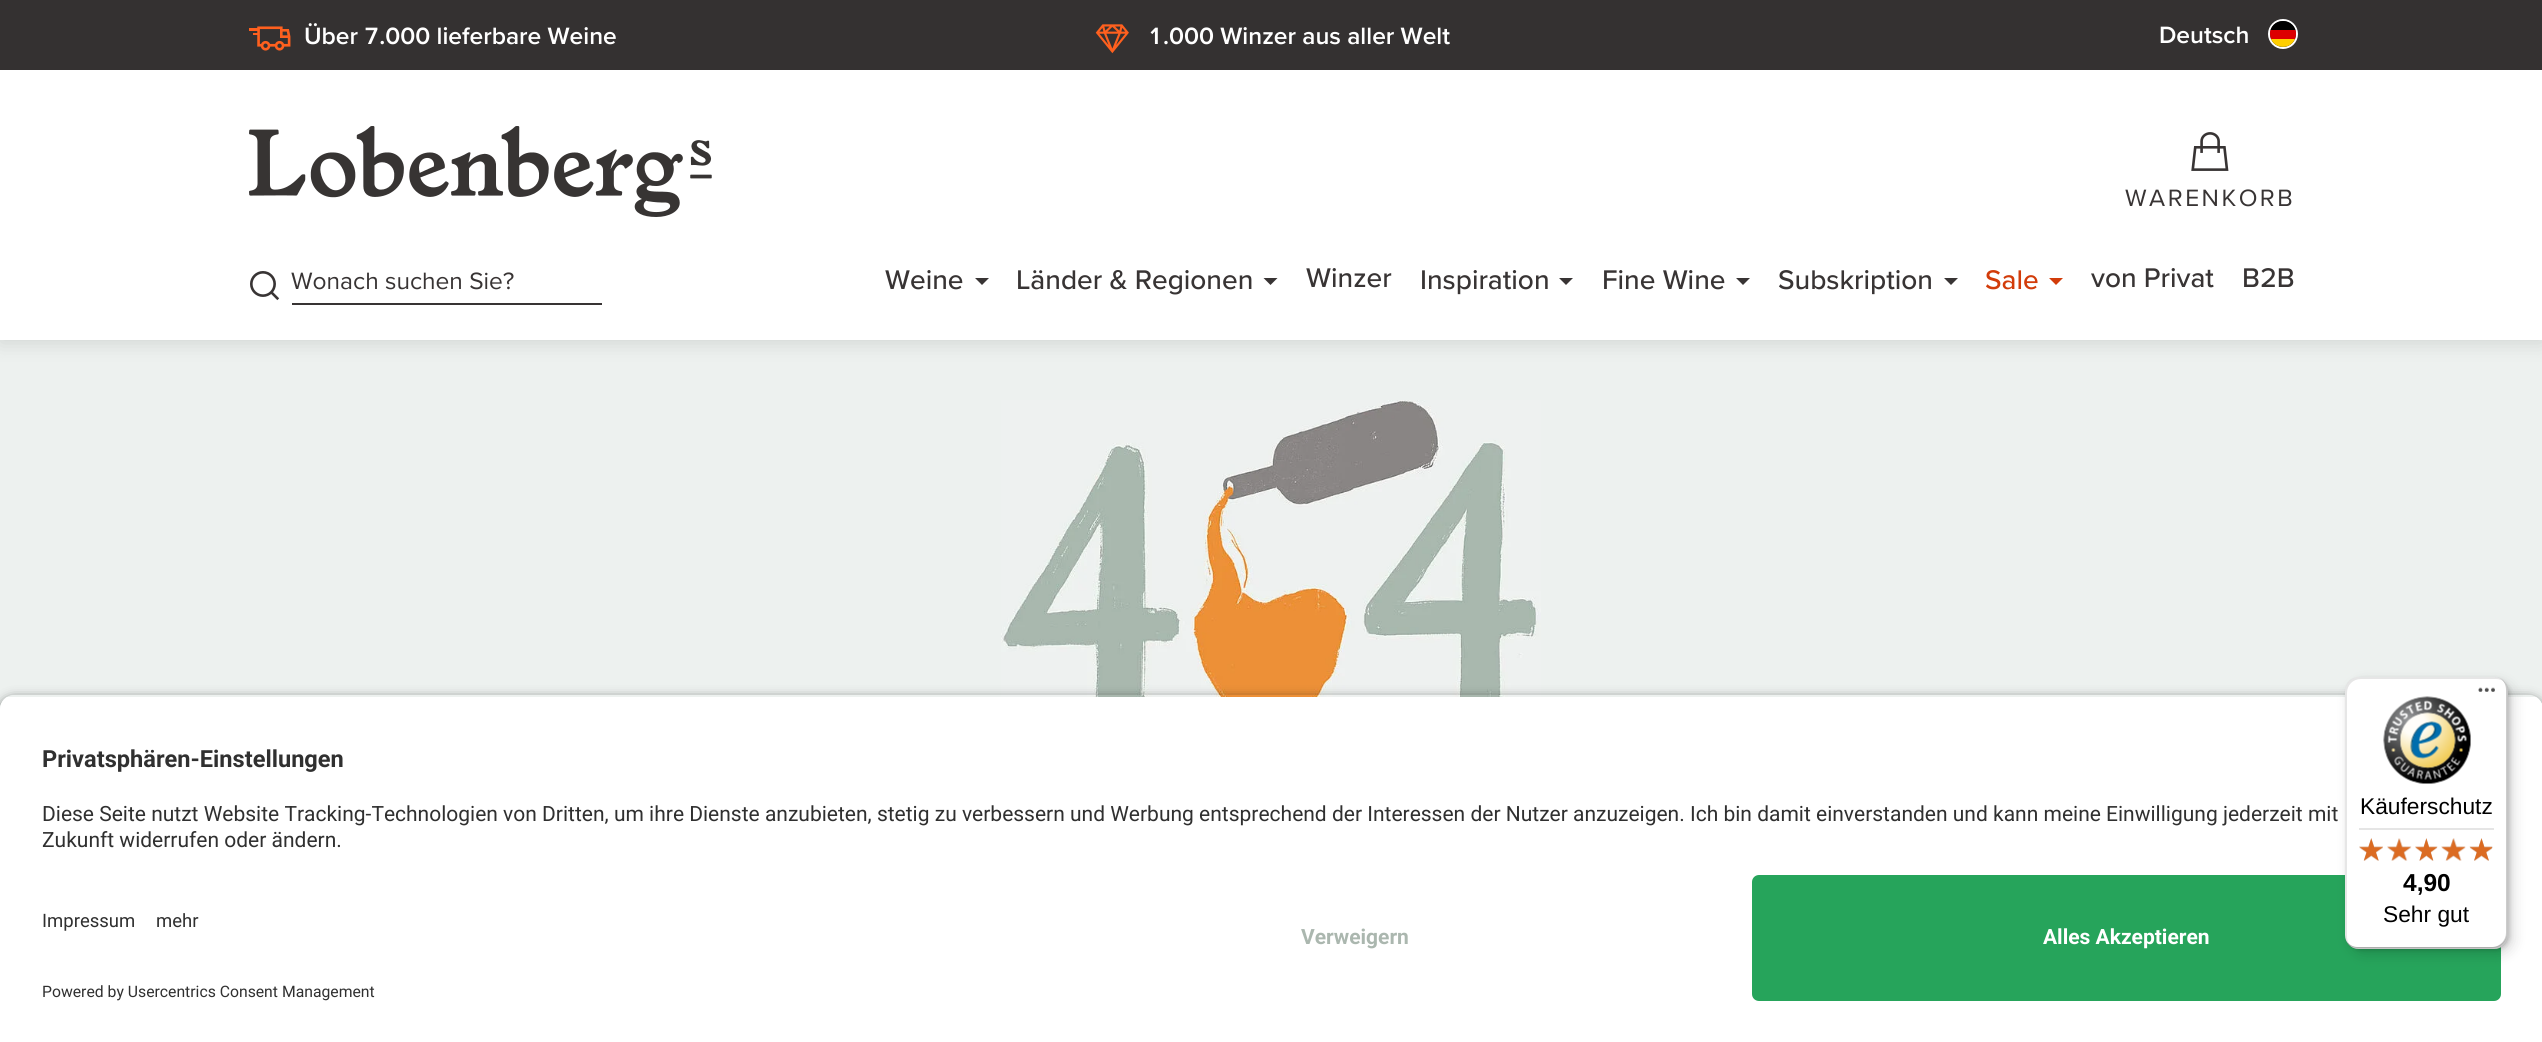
#include <cairo.h>
#include <math.h>
#include <stddef.h>

typedef struct { const char *family; double size; int italic, bold; unsigned color; } style_t;
static cairo_t *ctx;

static void ink(unsigned color) {
    cairo_set_source_rgb(ctx, (color >> 16) / 255.0, (color >> 8 & 255) / 255.0, (color & 255) / 255.0);
}

static void write(double x, double y, const char *s, const style_t *st) {
    cairo_select_font_face(ctx, st->family, st->italic ? CAIRO_FONT_SLANT_ITALIC : CAIRO_FONT_SLANT_NORMAL,
        st->bold ? CAIRO_FONT_WEIGHT_BOLD : CAIRO_FONT_WEIGHT_NORMAL);
    cairo_set_font_size(ctx, st->size);
    ink(st->color);
    cairo_move_to(ctx, x, y);
    cairo_show_text(ctx, s);
}

static void write_spaced(double x, double y, const char *s, double letter, double word) {
    cairo_move_to(ctx, x, y);
    while (*s) {
        char ch[5] = {0};
        int n = 0;
        do ch[n++] = *s++; while ((*s & 0xC0) == 0x80);
        cairo_show_text(ctx, ch);
        cairo_rel_move_to(ctx, letter + word * (*ch == ' '), 0);
    }
}

static void block(double x, double y, double w, double h, unsigned color) {
    ink(color);
    cairo_rectangle(ctx, x, y, w, h);
    cairo_fill(ctx);
}

static void round_path(double x, double y, double w, double h, double r) {
    cairo_new_sub_path(ctx);
    cairo_arc(ctx, x + w - r, y + h - r, r, 0, M_PI / 2);
    cairo_arc(ctx, x + r, y + h - r, r, M_PI / 2, M_PI);
    cairo_arc(ctx, x + r, y + r, r, M_PI, 1.5 * M_PI);
    cairo_arc(ctx, x + w - r, y + r, r, 1.5 * M_PI, 2 * M_PI);
    cairo_close_path(ctx);
}

static void blur_box(double x, double y, double w, double h, double r, double blur, double alpha) {
    cairo_push_group_with_content(ctx, CAIRO_CONTENT_ALPHA);
    cairo_set_operator(ctx, CAIRO_OPERATOR_SOURCE);
    for (int i = 15; i >= -15 && fmin(w, h) + blur * i / 3 > 0; i -= 2) {
        double e = blur * i / 6;
        cairo_set_source_rgba(ctx, 0, 0, 0, alpha * erfc((i - 1) / 8.5) / 2);
        round_path(x - e, y - e, w + 2 * e, h + 2 * e, fmax(0, fmin(r + e + blur * .6, fmin(w, h) / 2 + e)));
        cairo_fill(ctx);
    }
    cairo_pattern_t *soft = cairo_pop_group(ctx);
    cairo_mask(ctx, soft);
    cairo_pattern_destroy(soft);
}

static void paste(const char *path, double x, double y, double w, double h) {
    cairo_surface_t *image = cairo_image_surface_create_from_png(path);
    cairo_save(ctx);
    cairo_set_source_surface(ctx, image, x, y);
    cairo_rectangle(ctx, x, y, w, h);
    cairo_fill(ctx);
    cairo_restore(ctx);
    cairo_surface_destroy(image);
}

static const style_t s1 = {"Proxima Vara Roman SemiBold", 24.5, 0, 0, 0xffffff};
static const style_t s2 = {"Proxima Vara Roman", 24.5, 0, 0, 0x383434};
static const style_t s3 = {"Proxima Vara Roman Medium", 28, 0, 0, 0x383434};
static const style_t s4 = {"Proxima Vara Roman Medium", 28, 0, 0, 0xd23c0a};
static const style_t s5 = {"Roboto", 23.6, 0, 1, 0x303030};
static const style_t s6 = {"Roboto", 21, 0, 0, 0x303030};
static const style_t s7 = {"Roboto", 18.5, 0, 0, 0x303030};
static const style_t s8 = {"Roboto", 15.75, 0, 0, 0x303030};
static const style_t s9 = {"Roboto", 21, 0, 1, 0xabb7af};
static const style_t s10 = {"Roboto", 21, 0, 1, 0xffffff};
static const style_t s11 = {"Liberation Sans", 22.75, 0, 0, 0x000000};
static const style_t s12 = {"Liberation Sans", 24.5, 0, 1, 0x000000};

int main(void) {
    cairo_surface_t *surface = cairo_image_surface_create(CAIRO_FORMAT_RGB24, 2542, 1042);
    ctx = cairo_create(surface);
    cairo_font_options_t *options = cairo_font_options_create();
    cairo_font_options_set_hint_metrics(options, CAIRO_HINT_METRICS_OFF);
    cairo_font_options_set_hint_style(options, CAIRO_HINT_STYLE_NONE);
    cairo_set_font_options(ctx, options);
    cairo_set_miter_limit(ctx, 4);
    ink(0xffffff);
    cairo_paint(ctx);
    block(0, 340, 2542, 369, 0xedf1ef);
    cairo_save(ctx);
    cairo_set_fill_rule(ctx, CAIRO_FILL_RULE_EVEN_ODD);
    cairo_new_path(ctx);
    cairo_move_to(ctx, 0, 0);
    cairo_line_to(ctx, 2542, 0);
    cairo_line_to(ctx, 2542, 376);
    cairo_line_to(ctx, 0, 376);
    cairo_close_path(ctx);
    cairo_move_to(ctx, 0, 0);
    cairo_line_to(ctx, 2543, 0);
    cairo_line_to(ctx, 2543, 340);
    cairo_line_to(ctx, 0, 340);
    cairo_close_path(ctx);
    cairo_clip(ctx);
    ink(0x000000);
    blur_box(0, 4, 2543, 339, 0, 10.5, 0.12);
    cairo_restore(ctx);
    block(0, 0, 2542, 70, 0x343131);
    paste("pic1.png", 249, 26, 42, 25);
    write(304, 44, "Über 7.000 lieferbare Weine", &s1);
    paste("pic2.png", 1095, 24, 34, 30);
    write(1148, 44, "1.000 Winzer aus aller Welt", &s1);
    write(2159, 43, "Deutsch", &s1);
    cairo_new_path(ctx);
    cairo_arc(ctx, 2283, 34, 14, 0, 2 * M_PI);
    cairo_stroke(ctx);
    ink(0xffce00);
    cairo_new_path(ctx);
    cairo_move_to(ctx, 2295, 39);
    cairo_line_to(ctx, 2271, 39);
    cairo_curve_to(ctx, 2275.5, 49.5, 2290.5, 49.5, 2295, 39);
    cairo_close_path(ctx);
    cairo_fill(ctx);
    ink(0x000000);
    cairo_new_path(ctx);
    cairo_move_to(ctx, 2295.5, 30);
    cairo_curve_to(ctx, 2291.5, 18, 2274.5, 18, 2270.5, 30);
    cairo_close_path(ctx);
    cairo_fill(ctx);
    ink(0xdd0000);
    cairo_new_path(ctx);
    cairo_move_to(ctx, 2271, 39);
    cairo_line_to(ctx, 2295, 39);
    cairo_curve_to(ctx, 2296, 36, 2296.5, 33, 2295.5, 30);
    cairo_line_to(ctx, 2270.5, 30);
    cairo_curve_to(ctx, 2269.5, 33, 2270, 36, 2271, 39);
    cairo_close_path(ctx);
    cairo_fill(ctx);
    paste("pic3.png", 249, 126, 463, 91);
    paste("pic4.png", 2191, 132, 38, 39);
    cairo_select_font_face(ctx, "Proxima Vara Roman", CAIRO_FONT_SLANT_NORMAL, CAIRO_FONT_WEIGHT_NORMAL);
    ink(0x383434);
    write_spaced(2125, 206, "WARENKORB", 2.5, 0);
    paste("pic5.png", 250, 271, 30, 30);
    block(292, 303, 310, 2, 0x383434);
    write(291, 289, "Wonach suchen Sie?", &s2);
    write(885, 289, "Weine", &s3);
    cairo_new_path(ctx);
    cairo_move_to(ctx, 975, 278);
    cairo_line_to(ctx, 989, 278);
    cairo_line_to(ctx, 982, 285);
    cairo_close_path(ctx);
    cairo_fill(ctx);
    write(1016, 289, "Länder & Regionen", &s3);
    cairo_new_path(ctx);
    cairo_move_to(ctx, 1263.5, 278);
    cairo_line_to(ctx, 1277.5, 278);
    cairo_line_to(ctx, 1270.5, 285);
    cairo_close_path(ctx);
    cairo_fill(ctx);
    write(1306, 287, "Winzer", &s3);
    write(1420, 289, "Inspiration", &s3);
    cairo_new_path(ctx);
    cairo_move_to(ctx, 1559, 278);
    cairo_line_to(ctx, 1573, 278);
    cairo_line_to(ctx, 1566, 285);
    cairo_close_path(ctx);
    cairo_fill(ctx);
    write(1602, 289, "Fine Wine", &s3);
    cairo_new_path(ctx);
    cairo_move_to(ctx, 1736, 278);
    cairo_line_to(ctx, 1750, 278);
    cairo_line_to(ctx, 1743, 285);
    cairo_close_path(ctx);
    cairo_fill(ctx);
    write(1778, 289, "Subskription", &s3);
    cairo_new_path(ctx);
    cairo_move_to(ctx, 1944, 278);
    cairo_line_to(ctx, 1958, 278);
    cairo_line_to(ctx, 1951, 285);
    cairo_close_path(ctx);
    cairo_fill(ctx);
    write(1985, 289, "Sale", &s4);
    cairo_new_path(ctx);
    cairo_move_to(ctx, 2049, 278);
    cairo_line_to(ctx, 2063, 278);
    cairo_line_to(ctx, 2056, 285);
    cairo_close_path(ctx);
    cairo_fill(ctx);
    write(2091, 287, "von Privat", &s3);
    write(2242, 287, "B2B", &s3);
    paste("pic6.png", 1001, 400, 540, 297);
    cairo_save(ctx);
    cairo_set_fill_rule(ctx, CAIRO_FILL_RULE_EVEN_ODD);
    cairo_new_path(ctx);
    cairo_move_to(ctx, 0, 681);
    cairo_line_to(ctx, 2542, 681);
    cairo_line_to(ctx, 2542, 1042);
    cairo_line_to(ctx, 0, 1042);
    cairo_close_path(ctx);
    cairo_move_to(ctx, 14, 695);
    cairo_line_to(ctx, 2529, 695);
    cairo_curve_to(ctx, 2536.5, 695, 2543, 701.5, 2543, 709);
    cairo_line_to(ctx, 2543, 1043);
    cairo_line_to(ctx, 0, 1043);
    cairo_line_to(ctx, 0, 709);
    cairo_curve_to(ctx, 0, 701.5, 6.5, 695, 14, 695);
    cairo_close_path(ctx);
    cairo_clip(ctx);
    ink(0x000000);
    blur_box(0, 700, 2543, 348, 14, 6, 0.8);
    cairo_restore(ctx);
    cairo_save(ctx);
    cairo_new_path(ctx);
    cairo_move_to(ctx, 14, 695);
    cairo_line_to(ctx, 2529, 695);
    cairo_curve_to(ctx, 2536.5, 695, 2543, 701.5, 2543, 709);
    cairo_line_to(ctx, 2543, 861);
    cairo_line_to(ctx, 0, 861);
    cairo_line_to(ctx, 0, 709);
    cairo_curve_to(ctx, 0, 701.5, 6.5, 695, 14, 695);
    cairo_close_path(ctx);
    cairo_clip(ctx);
    block(0, 697, 2542, 164, 0xffffff);
    cairo_restore(ctx);
    write(42, 767, "Privatsphären-Einstellungen", &s5);
    write(42, 821, "Diese Seite nutzt Website Tracking-Technologien von Dritten, um ihre Dienste anzubieten, stetig zu verbessern und Werbung entsprechend der Interessen der Nutzer anzuzeigen. Ich bin damit einverstanden und kann meine Einwilligung jederzeit mit", &s6);
    write(42, 847, "Zukunft widerrufen oder ändern.", &s6);
    write(42, 927, "Impressum", &s7);
    write(156, 927, "mehr", &s7);
    write(42, 997, "Powered by Usercentrics Consent Management", &s8);
    write(1301, 944, "Verweigern", &s9);
    ink(0x26a45b);
    round_path(1752, 875, 749, 126, 7);
    cairo_fill(ctx);
    write(2043, 944, "Alles Akzeptieren", &s10);
    ink(0x000000);
    blur_box(2350, 683, 163, 271, 14, 7, 0.15);
    blur_box(2347, 679, 163, 271, 14, 2, 0.15);
    ink(0xffffff);
    round_path(2345, 677, 163, 272, 14);
    cairo_fill(ctx);
    cairo_set_source_rgba(ctx, 0, 0, 0, 0.1);
    cairo_new_path(ctx);
    cairo_move_to(ctx, 2361, 679);
    cairo_line_to(ctx, 2496, 679);
    cairo_curve_to(ctx, 2499, 679, 2503, 680, 2505, 683);
    cairo_curve_to(ctx, 2503, 679, 2499, 677, 2494, 677);
    cairo_line_to(ctx, 2359, 677);
    cairo_curve_to(ctx, 2351, 677, 2345, 683, 2345, 691);
    cairo_line_to(ctx, 2345, 935);
    cairo_curve_to(ctx, 2345, 941, 2348, 945, 2353, 948);
    cairo_curve_to(ctx, 2349, 945, 2347, 941, 2347, 936);
    cairo_line_to(ctx, 2347, 693);
    cairo_curve_to(ctx, 2347, 685, 2353, 679, 2361, 679);
    cairo_close_path(ctx);
    cairo_fill(ctx);
    cairo_set_source_rgba(ctx, 0, 0, 0, 0.2);
    cairo_new_path(ctx);
    cairo_move_to(ctx, 2347, 942);
    cairo_curve_to(ctx, 2349, 946, 2354, 949, 2359, 949);
    cairo_line_to(ctx, 2494, 949);
    cairo_curve_to(ctx, 2502, 949, 2508, 943, 2508, 935);
    cairo_line_to(ctx, 2508, 691);
    cairo_curve_to(ctx, 2508, 685, 2505, 681, 2500, 678);
    cairo_curve_to(ctx, 2504, 681, 2506, 685, 2506, 690);
    cairo_line_to(ctx, 2506, 933);
    cairo_curve_to(ctx, 2506, 940, 2500, 947, 2492, 947);
    cairo_line_to(ctx, 2357, 947);
    cairo_curve_to(ctx, 2353, 947, 2350, 945, 2347, 942);
    cairo_close_path(ctx);
    cairo_fill(ctx);
    cairo_set_source_rgba(ctx, 0.196, 0.196, 0.196, 0.2);
    cairo_new_path(ctx);
    cairo_move_to(ctx, 2346, 941);
    cairo_curve_to(ctx, 2349, 946, 2353, 949, 2359, 949);
    cairo_line_to(ctx, 2494, 949);
    cairo_curve_to(ctx, 2502, 949, 2508, 943, 2508, 935);
    cairo_line_to(ctx, 2508, 691);
    cairo_curve_to(ctx, 2508, 686, 2506, 682, 2502, 680);
    cairo_curve_to(ctx, 2505, 682, 2507, 686, 2507, 690);
    cairo_line_to(ctx, 2507, 933);
    cairo_curve_to(ctx, 2507, 941, 2500, 947, 2493, 947);
    cairo_line_to(ctx, 2358, 947);
    cairo_curve_to(ctx, 2353, 947, 2349, 945, 2346, 941);
    cairo_close_path(ctx);
    cairo_fill(ctx);
    cairo_set_source_rgba(ctx, 1, 1, 1, 0.3);
    cairo_new_path(ctx);
    cairo_move_to(ctx, 2348, 943);
    cairo_curve_to(ctx, 2350, 947, 2354, 949, 2359, 949);
    cairo_line_to(ctx, 2494, 949);
    cairo_curve_to(ctx, 2502, 949, 2508, 943, 2508, 935);
    cairo_line_to(ctx, 2508, 691);
    cairo_curve_to(ctx, 2508, 686, 2506, 682, 2503, 680);
    cairo_curve_to(ctx, 2505, 683, 2507, 686, 2507, 690);
    cairo_line_to(ctx, 2507, 934);
    cairo_curve_to(ctx, 2507, 941, 2501, 948, 2493, 948);
    cairo_line_to(ctx, 2358, 948);
    cairo_curve_to(ctx, 2354, 948, 2350, 946, 2348, 943);
    cairo_close_path(ctx);
    cairo_fill(ctx);
    paste("pic7.png", 2478, 687, 17, 5);
    paste("pic8.png", 2383, 696, 88, 88);
    write(2360, 814, "Käuferschutz", &s11);
    block(2359, 828, 135, 2, 0xe5e5e5);
    paste("pic9.png", 2359, 838, 24, 23);
    paste("pic10.png", 2387, 838, 24, 23);
    paste("pic11.png", 2415, 838, 23, 23);
    paste("pic12.png", 2442, 838, 23, 23);
    paste("pic13.png", 2470, 838, 23, 23);
    paste("pic14.png", 2359, 838, 24, 23);
    paste("pic15.png", 2387, 838, 25, 23);
    paste("pic16.png", 2415, 838, 23, 23);
    paste("pic17.png", 2441, 838, 25, 23);
    paste("pic18.png", 2469, 838, 23, 23);
    write(2403, 891, "4,90", &s12);
    write(2383, 922, "Sehr gut", &s11);
    cairo_surface_write_to_png(surface, "screenshot.png");
    cairo_font_options_destroy(options);
    cairo_destroy(ctx);
    cairo_surface_destroy(surface);
    return 0;
}
